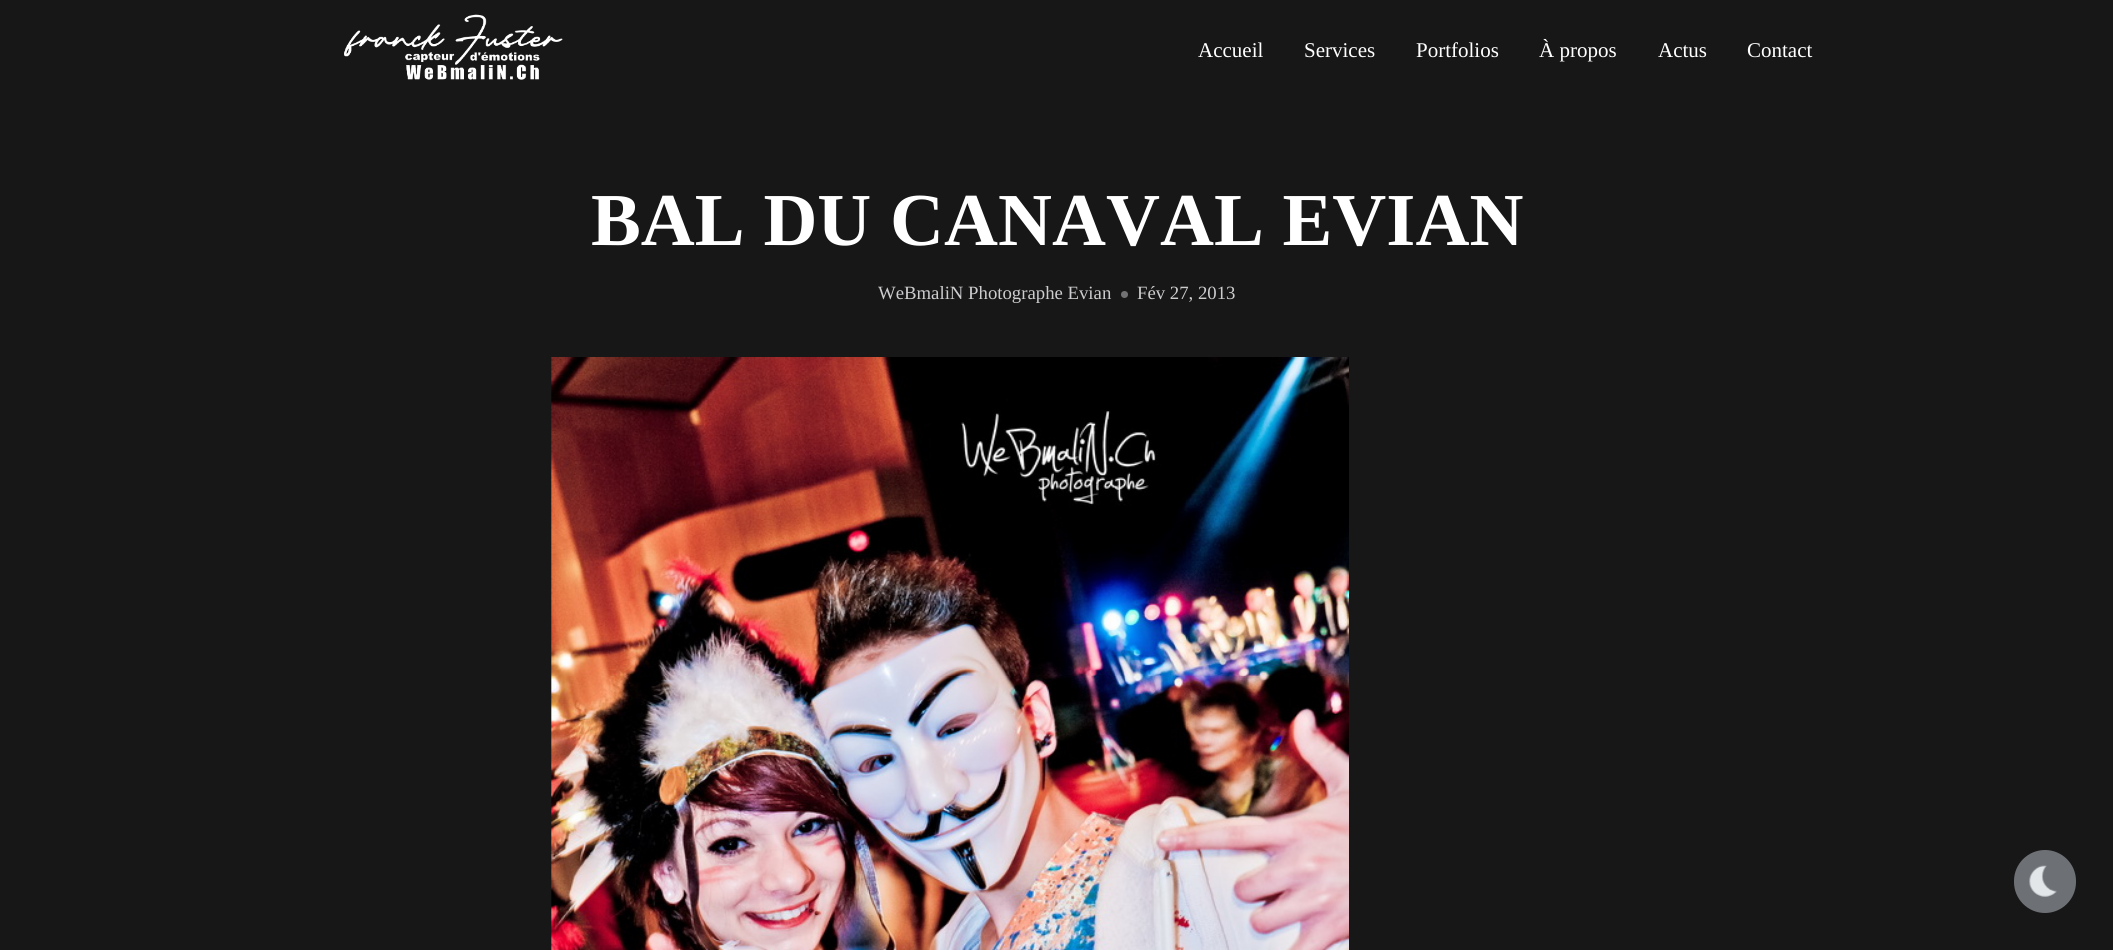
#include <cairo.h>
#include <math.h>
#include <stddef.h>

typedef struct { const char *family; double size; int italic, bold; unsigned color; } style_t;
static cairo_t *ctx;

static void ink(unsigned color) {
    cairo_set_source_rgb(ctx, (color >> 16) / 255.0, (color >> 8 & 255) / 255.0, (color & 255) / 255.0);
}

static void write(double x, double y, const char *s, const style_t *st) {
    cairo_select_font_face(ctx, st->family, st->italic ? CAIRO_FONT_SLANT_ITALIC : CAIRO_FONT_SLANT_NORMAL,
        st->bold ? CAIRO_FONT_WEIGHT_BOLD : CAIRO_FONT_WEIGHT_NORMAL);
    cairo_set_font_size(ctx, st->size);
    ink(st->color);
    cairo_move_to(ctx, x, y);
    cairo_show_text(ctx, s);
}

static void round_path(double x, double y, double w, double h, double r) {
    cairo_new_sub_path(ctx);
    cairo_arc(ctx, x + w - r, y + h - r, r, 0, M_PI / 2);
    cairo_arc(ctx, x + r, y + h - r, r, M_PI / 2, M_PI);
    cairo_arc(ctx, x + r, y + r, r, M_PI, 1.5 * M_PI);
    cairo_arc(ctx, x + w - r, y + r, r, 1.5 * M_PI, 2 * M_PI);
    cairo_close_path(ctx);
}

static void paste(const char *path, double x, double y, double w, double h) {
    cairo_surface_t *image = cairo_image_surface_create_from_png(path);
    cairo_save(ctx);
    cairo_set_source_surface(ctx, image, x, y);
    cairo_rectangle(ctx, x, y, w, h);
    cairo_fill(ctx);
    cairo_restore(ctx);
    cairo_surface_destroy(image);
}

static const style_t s1 = {"Liberation Serif", 21, 0, 0, 0xffffff};
static const style_t s2 = {"Liberation Serif", 74.75, 0, 1, 0xffffff};
static const style_t s3 = {"Liberation Serif", 18.75, 0, 0, 0xcdcdd0};

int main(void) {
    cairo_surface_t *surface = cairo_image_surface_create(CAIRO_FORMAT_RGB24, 2113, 950);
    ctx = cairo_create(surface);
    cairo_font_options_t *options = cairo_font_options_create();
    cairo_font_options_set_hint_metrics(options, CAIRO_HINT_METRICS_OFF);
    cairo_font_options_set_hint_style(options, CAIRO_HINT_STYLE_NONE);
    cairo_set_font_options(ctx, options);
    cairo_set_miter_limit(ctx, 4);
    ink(0x171717);
    cairo_paint(ctx);
    paste("pic1.png", 344, 14, 219, 66);
    write(1198, 57, "Accueil", &s1);
    write(1304, 57, "Services", &s1);
    write(1416, 57, "Portfolios", &s1);
    write(1539, 57, "À propos", &s1);
    write(1658, 57, "Actus", &s1);
    write(1747, 57, "Contact", &s1);
    write(591, 245, "BAL DU CANAVAL EVIAN", &s2);
    write(878, 299, "WeBmaliN Photographe Evian", &s3);
    ink(0x727274);
    cairo_new_path(ctx);
    cairo_arc(ctx, 1124.5, 294.5, 3.5, 0, 2 * M_PI);
    cairo_fill(ctx);
    write(1137, 299, "Fév 27, 2013", &s3);
    paste("pic2.png", 551, 357, 798, 593);
    ink(0x6d7074);
    round_path(2014, 850, 62, 63, 31);
    cairo_fill(ctx);
    paste("pic3.png", 2029, 865, 28, 32);
    cairo_surface_write_to_png(surface, "screenshot.png");
    cairo_font_options_destroy(options);
    cairo_destroy(ctx);
    cairo_surface_destroy(surface);
    return 0;
}
